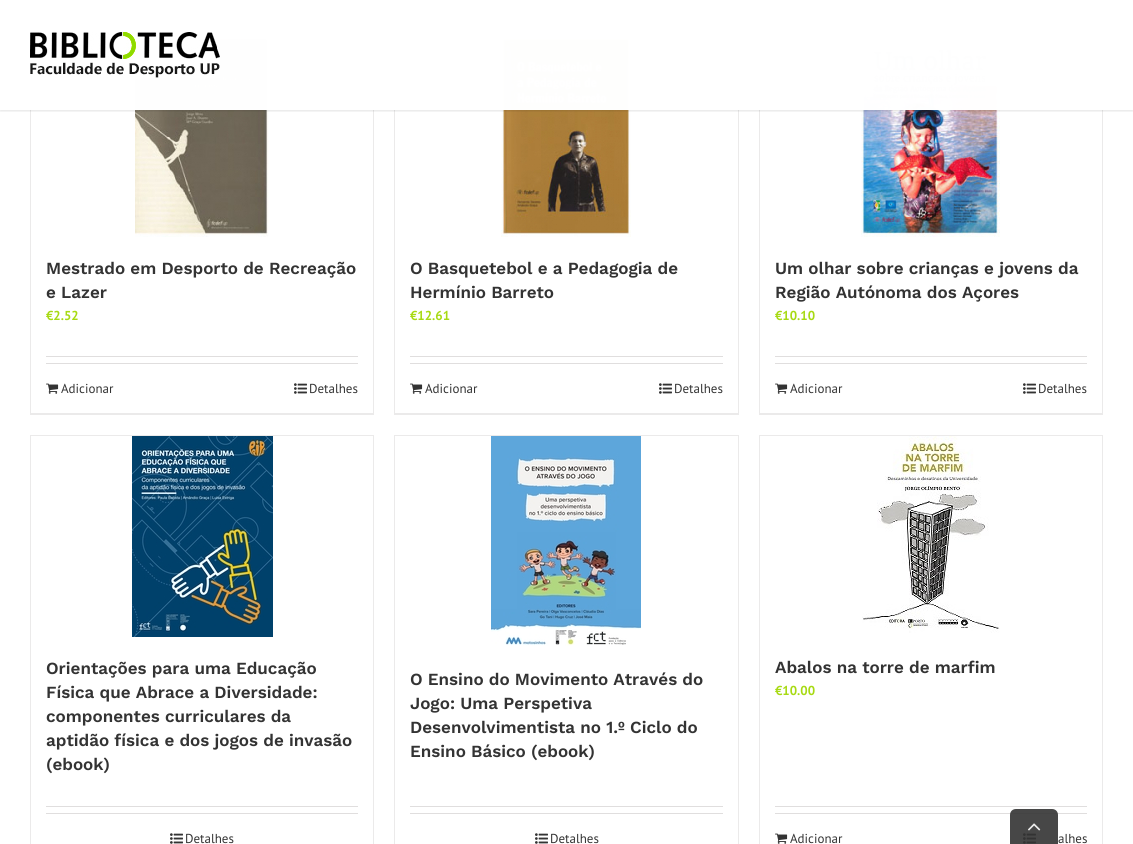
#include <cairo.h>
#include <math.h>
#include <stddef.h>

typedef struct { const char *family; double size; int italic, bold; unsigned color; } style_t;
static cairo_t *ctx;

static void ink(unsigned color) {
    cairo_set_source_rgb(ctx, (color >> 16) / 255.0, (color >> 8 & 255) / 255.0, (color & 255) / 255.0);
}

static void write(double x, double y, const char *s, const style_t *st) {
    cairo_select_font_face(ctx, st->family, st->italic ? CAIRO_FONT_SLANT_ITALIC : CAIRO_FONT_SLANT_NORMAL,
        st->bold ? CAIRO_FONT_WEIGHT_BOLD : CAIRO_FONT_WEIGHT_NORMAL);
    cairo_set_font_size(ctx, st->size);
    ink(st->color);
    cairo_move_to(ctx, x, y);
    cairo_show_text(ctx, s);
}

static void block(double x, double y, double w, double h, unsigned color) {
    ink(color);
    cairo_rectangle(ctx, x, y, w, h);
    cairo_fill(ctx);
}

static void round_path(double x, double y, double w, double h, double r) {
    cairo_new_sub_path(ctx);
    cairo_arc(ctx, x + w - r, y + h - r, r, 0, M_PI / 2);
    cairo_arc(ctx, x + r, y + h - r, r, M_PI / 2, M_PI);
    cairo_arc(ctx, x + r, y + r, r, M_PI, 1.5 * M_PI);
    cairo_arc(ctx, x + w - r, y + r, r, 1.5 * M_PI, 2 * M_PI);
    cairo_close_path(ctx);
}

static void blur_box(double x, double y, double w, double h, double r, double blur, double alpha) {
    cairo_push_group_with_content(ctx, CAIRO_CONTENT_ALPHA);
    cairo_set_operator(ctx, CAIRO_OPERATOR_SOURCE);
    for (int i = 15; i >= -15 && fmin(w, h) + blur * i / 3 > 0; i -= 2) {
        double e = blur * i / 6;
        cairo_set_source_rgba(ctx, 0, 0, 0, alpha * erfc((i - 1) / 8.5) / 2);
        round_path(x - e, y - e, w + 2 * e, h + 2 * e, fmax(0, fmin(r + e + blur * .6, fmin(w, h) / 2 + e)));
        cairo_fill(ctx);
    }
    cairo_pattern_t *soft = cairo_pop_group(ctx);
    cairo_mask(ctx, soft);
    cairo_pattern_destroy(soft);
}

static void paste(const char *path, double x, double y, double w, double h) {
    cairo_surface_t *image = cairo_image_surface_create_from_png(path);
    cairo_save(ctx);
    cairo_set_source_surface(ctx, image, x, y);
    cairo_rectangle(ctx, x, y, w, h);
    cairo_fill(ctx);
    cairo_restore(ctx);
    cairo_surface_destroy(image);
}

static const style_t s1 = {"Work Sans SemiBold", 17, 0, 0, 0x333333};
static const style_t s2 = {"PT Sans", 13, 0, 1, 0xa7da13};
static const style_t s3 = {"PT Sans", 13, 0, 0, 0x333333};

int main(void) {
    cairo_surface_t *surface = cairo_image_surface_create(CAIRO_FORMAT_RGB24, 1133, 844);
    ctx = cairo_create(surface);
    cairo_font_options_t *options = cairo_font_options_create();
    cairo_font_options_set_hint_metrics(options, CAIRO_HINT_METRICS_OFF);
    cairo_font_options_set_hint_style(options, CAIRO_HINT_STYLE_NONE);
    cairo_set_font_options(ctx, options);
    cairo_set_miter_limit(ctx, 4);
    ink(0xffffff);
    cairo_paint(ctx);
    block(220, 36, 154, 1, 0xebeaea);
    block(373, 36, 1, 379, 0xebeaea);
    block(30, 413, 344, 2, 0xebeaea);
    block(30, 78, 1, 337, 0xebeaea);
    paste("pic2.png", 135, 37, 134, 200);
    block(394, 36, 345, 1, 0xebeaea);
    block(738, 36, 1, 379, 0xebeaea);
    block(394, 413, 345, 2, 0xebeaea);
    block(394, 36, 1, 379, 0xebeaea);
    paste("pic5.png", 501, 37, 130, 200);
    block(759, 36, 344, 1, 0xebeaea);
    block(1102, 36, 1, 379, 0xebeaea);
    block(759, 413, 344, 2, 0xebeaea);
    block(759, 36, 1, 379, 0xebeaea);
    paste("pic6.png", 861, 49, 139, 188);
    cairo_save(ctx);
    cairo_rectangle(ctx, 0, 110, 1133, 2);
    cairo_clip(ctx);
    ink(0x000000);
    blur_box(0, 1, 1133, 110, 0, 1.5, 0.12);
    cairo_restore(ctx);
    cairo_set_source_rgba(ctx, 1, 1, 1, 0.99);
    cairo_rectangle(ctx, 30, 36, 1073, 74);
    cairo_fill(ctx);
    paste("pic1.png", 30, 32, 190, 46);
    write(46, 274, "Mestrado em Desporto de Recreação", &s1);
    write(46, 298, "e Lazer", &s1);
    write(46, 320, "€2.52", &s2);
    block(46, 356, 312, 1, 0xe0dede);
    block(46, 363, 312, 1, 0xe0dede);
    paste("pic3.png", 46, 383, 13, 11);
    write(61, 393, "Adicionar", &s3);
    paste("pic4.png", 294, 383, 13, 11);
    write(309, 393, "Detalhes", &s3);
    write(410, 274, "O Basquetebol e a Pedagogia de", &s1);
    write(410, 298, "Hermínio Barreto", &s1);
    write(410, 320, "€12.61", &s2);
    block(410, 356, 313, 1, 0xe0dede);
    block(410, 363, 313, 1, 0xe0dede);
    paste("pic3.png", 410, 383, 13, 11);
    write(425, 393, "Adicionar", &s3);
    paste("pic4.png", 659, 383, 13, 11);
    write(674, 393, "Detalhes", &s3);
    write(775, 274, "Um olhar sobre crianças e jovens da", &s1);
    write(775, 298, "Região Autónoma dos Açores", &s1);
    write(775, 320, "€10.10", &s2);
    block(775, 356, 312, 1, 0xe0dede);
    block(775, 363, 312, 1, 0xe0dede);
    paste("pic3.png", 775, 383, 13, 11);
    write(790, 393, "Adicionar", &s3);
    paste("pic4.png", 1023, 383, 13, 11);
    write(1038, 393, "Detalhes", &s3);
    block(30, 435, 344, 1, 0xebeaea);
    block(373, 435, 1, 409, 0xebeaea);
    block(30, 435, 1, 409, 0xebeaea);
    paste("pic7.png", 132, 436, 141, 201);
    write(46, 674, "Orientações para uma Educação", &s1);
    write(46, 698, "Física que Abrace a Diversidade:", &s1);
    write(46, 722, "componentes curriculares da", &s1);
    write(46, 746, "aptidão física e dos jogos de invasão", &s1);
    write(46, 770, "(ebook)", &s1);
    block(46, 806, 312, 1, 0xe0dede);
    block(46, 813, 312, 1, 0xe0dede);
    paste("pic4.png", 170, 833, 13, 11);
    write(185, 843, "Detalhes", &s3);
    block(394, 435, 345, 1, 0xebeaea);
    block(738, 435, 1, 409, 0xebeaea);
    block(394, 435, 1, 409, 0xebeaea);
    paste("pic8.png", 491, 436, 150, 210);
    write(410, 685, "O Ensino do Movimento Através do", &s1);
    write(410, 709, "Jogo: Uma Perspetiva", &s1);
    write(410, 733, "Desenvolvimentista no 1.º Ciclo do", &s1);
    write(410, 757, "Ensino Básico (ebook)", &s1);
    block(410, 806, 313, 1, 0xe0dede);
    block(410, 813, 313, 1, 0xe0dede);
    paste("pic4.png", 535, 833, 13, 11);
    write(550, 843, "Detalhes", &s3);
    block(759, 435, 344, 1, 0xebeaea);
    block(1102, 435, 1, 409, 0xebeaea);
    block(759, 435, 1, 409, 0xebeaea);
    paste("pic9.png", 862, 436, 138, 197);
    write(775, 673, "Abalos na torre de marfim", &s1);
    write(775, 695, "€10.00", &s2);
    block(775, 806, 312, 1, 0xe0dede);
    block(775, 813, 312, 1, 0xe0dede);
    paste("pic3.png", 775, 833, 13, 11);
    write(790, 843, "Adicionar", &s3);
    paste("pic4.png", 1023, 833, 13, 11);
    write(1058, 843, "alhes", &s3);
    cairo_set_source_rgba(ctx, 0.2, 0.2, 0.2, 0.9);
    cairo_new_path(ctx);
    cairo_move_to(ctx, 1016, 809);
    cairo_line_to(ctx, 1052, 809);
    cairo_curve_to(ctx, 1055.5, 809, 1058, 811.5, 1058, 815);
    cairo_line_to(ctx, 1058, 844);
    cairo_line_to(ctx, 1010, 844);
    cairo_line_to(ctx, 1010, 815);
    cairo_curve_to(ctx, 1010, 811.5, 1012.5, 809, 1016, 809);
    cairo_close_path(ctx);
    cairo_fill(ctx);
    paste("pic10.png", 1028, 823, 13, 8);
    cairo_surface_write_to_png(surface, "screenshot.png");
    cairo_font_options_destroy(options);
    cairo_destroy(ctx);
    cairo_surface_destroy(surface);
    return 0;
}
